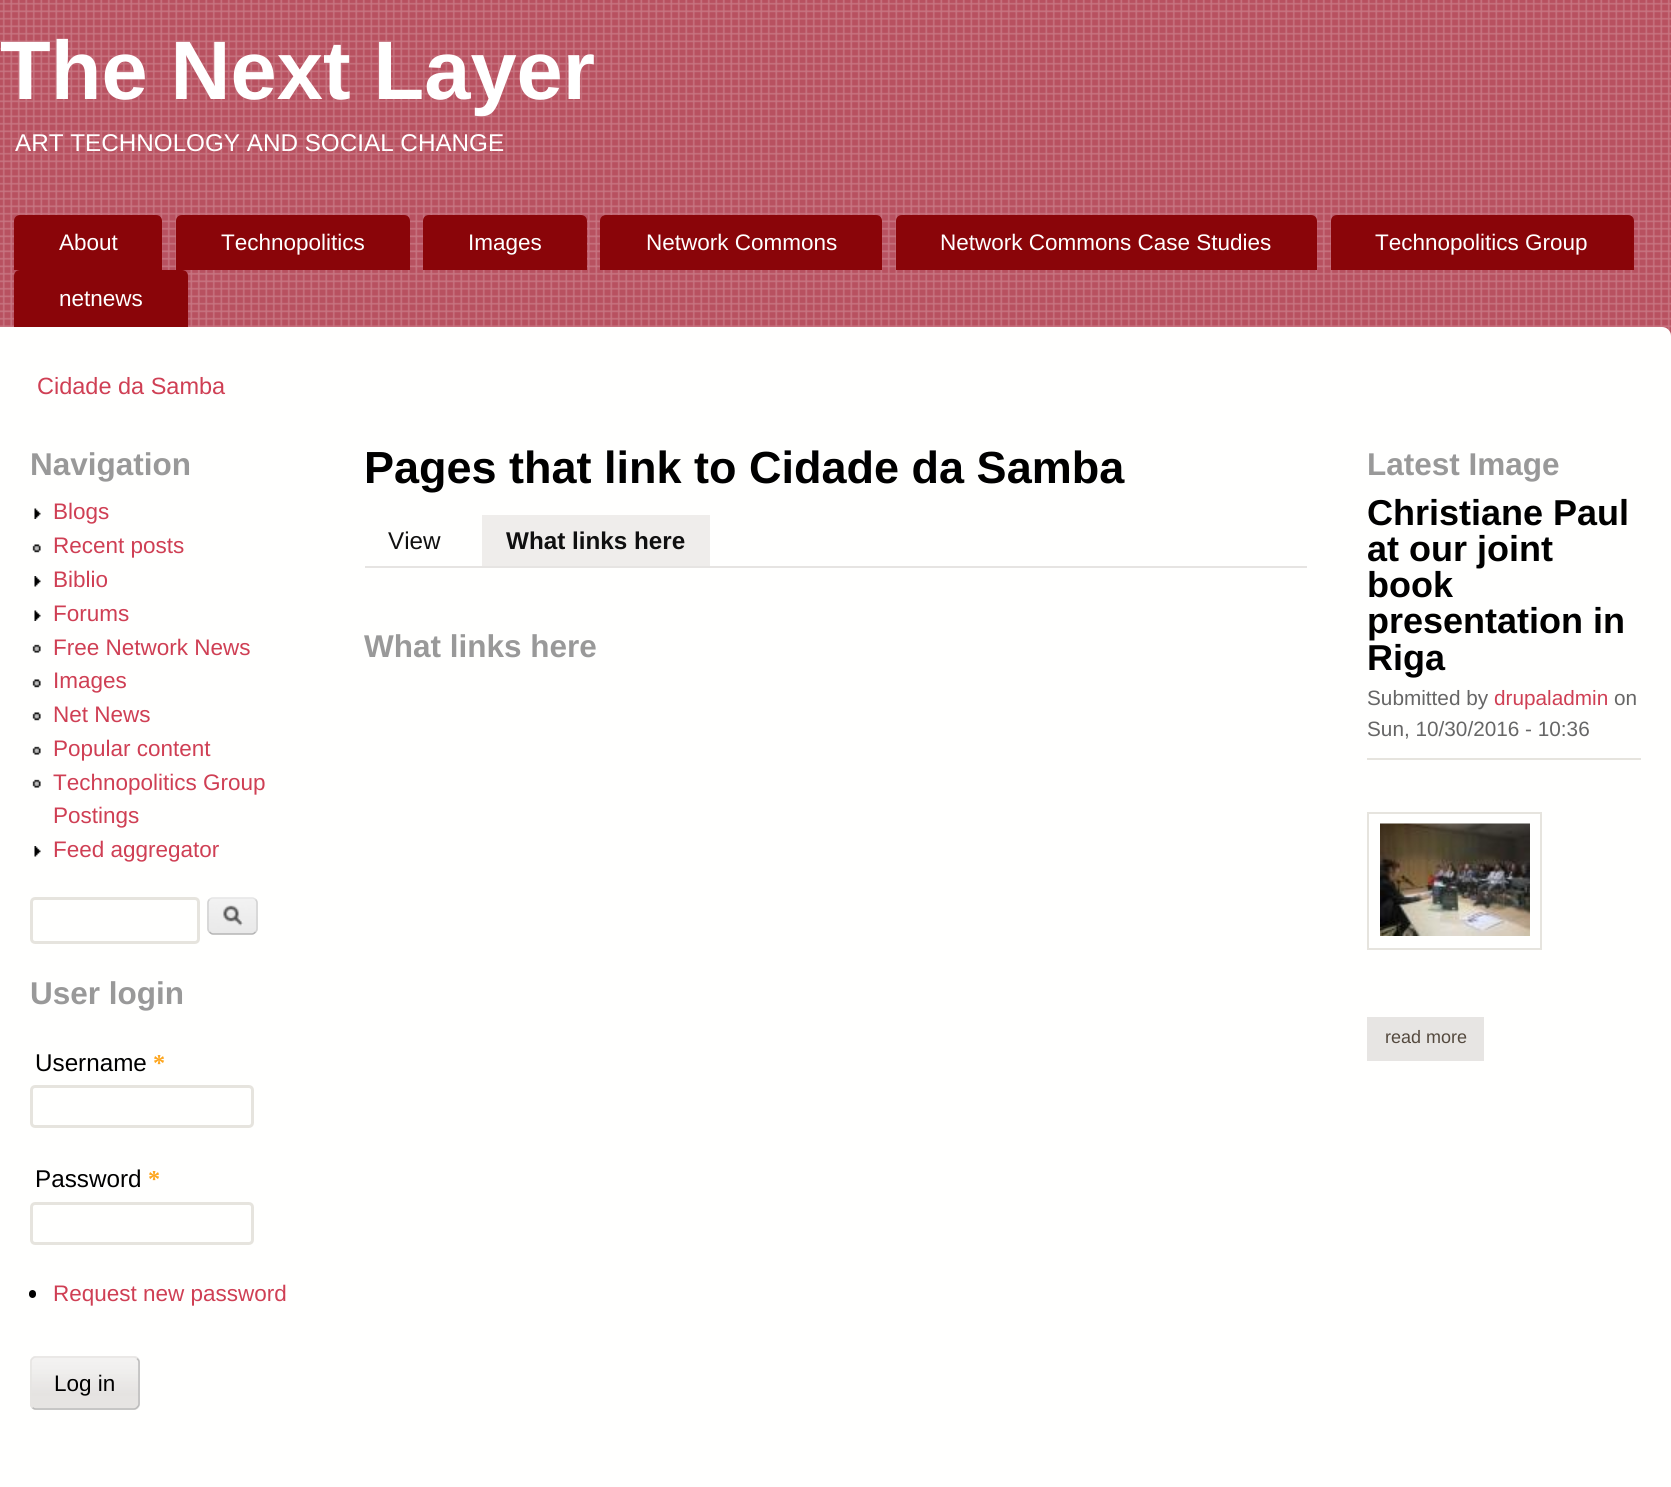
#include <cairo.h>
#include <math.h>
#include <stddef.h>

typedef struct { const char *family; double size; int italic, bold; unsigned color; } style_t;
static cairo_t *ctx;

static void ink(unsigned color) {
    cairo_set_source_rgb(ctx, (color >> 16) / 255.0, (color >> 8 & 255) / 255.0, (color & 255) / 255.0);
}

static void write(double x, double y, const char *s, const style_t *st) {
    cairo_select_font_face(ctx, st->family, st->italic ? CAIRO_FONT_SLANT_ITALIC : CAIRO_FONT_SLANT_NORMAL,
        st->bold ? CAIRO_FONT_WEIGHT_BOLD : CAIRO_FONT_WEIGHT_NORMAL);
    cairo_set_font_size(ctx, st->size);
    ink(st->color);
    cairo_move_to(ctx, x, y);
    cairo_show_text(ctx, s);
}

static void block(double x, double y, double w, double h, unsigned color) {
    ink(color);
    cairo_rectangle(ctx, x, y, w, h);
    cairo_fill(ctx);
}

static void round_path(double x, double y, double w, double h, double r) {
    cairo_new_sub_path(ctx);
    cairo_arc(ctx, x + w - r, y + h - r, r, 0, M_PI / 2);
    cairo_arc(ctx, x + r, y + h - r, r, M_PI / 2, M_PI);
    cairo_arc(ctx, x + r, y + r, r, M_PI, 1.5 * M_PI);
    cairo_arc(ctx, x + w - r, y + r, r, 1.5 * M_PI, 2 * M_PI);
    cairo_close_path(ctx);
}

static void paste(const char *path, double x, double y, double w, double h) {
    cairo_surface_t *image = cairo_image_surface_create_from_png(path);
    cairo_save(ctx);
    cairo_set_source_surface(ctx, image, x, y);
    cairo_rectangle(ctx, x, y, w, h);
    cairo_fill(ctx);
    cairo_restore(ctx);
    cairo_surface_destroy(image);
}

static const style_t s1 = {"Liberation Sans", 83, 0, 1, 0xffffff};
static const style_t s2 = {"Liberation Sans", 24.25, 0, 0, 0xffffff};
static const style_t s3 = {"Liberation Sans", 22.5, 0, 0, 0xffffff};
static const style_t s4 = {"Liberation Sans", 23.5, 0, 0, 0xcf3f54};
static const style_t s5 = {"Liberation Sans", 31.5, 0, 1, 0x999999};
static const style_t s6 = {"Liberation Sans", 22.5, 0, 0, 0xcf3f54};
static const style_t s7 = {"Liberation Sans", 24.25, 0, 0, 0x000000};
static const style_t s8 = {"Liberation Serif", 24.25, 0, 1, 0xfda61f};
static const style_t s9 = {"Liberation Sans", 22.5, 0, 0, 0x000000};
static const style_t s10 = {"Liberation Sans", 45, 0, 1, 0x000000};
static const style_t s11 = {"Liberation Sans", 24.25, 0, 0, 0x101010};
static const style_t s12 = {"Liberation Sans", 24.25, 0, 1, 0x101010};
static const style_t s13 = {"Liberation Sans", 36, 0, 1, 0x000000};
static const style_t s14 = {"Liberation Sans", 20.75, 0, 0, 0x666666};
static const style_t s15 = {"Liberation Sans", 20.75, 0, 0, 0xcf3f54};
static const style_t s16 = {"Liberation Sans", 18, 0, 0, 0x54493e};

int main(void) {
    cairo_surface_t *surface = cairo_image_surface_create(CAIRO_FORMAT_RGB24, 1671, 1487);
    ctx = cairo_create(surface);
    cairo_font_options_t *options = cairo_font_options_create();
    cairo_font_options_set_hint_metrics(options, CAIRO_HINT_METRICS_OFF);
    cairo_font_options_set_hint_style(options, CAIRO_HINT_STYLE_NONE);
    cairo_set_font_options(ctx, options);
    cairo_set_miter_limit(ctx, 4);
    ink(0xa21a2e);
    cairo_paint(ctx);
    paste("pic1.png", 0, 0, 1671, 336);
    write(0, 99, "The Next Layer", &s1);
    write(15, 151, "ART TECHNOLOGY AND SOCIAL CHANGE", &s2);
    ink(0x8a0509);
    cairo_new_path(ctx);
    cairo_move_to(ctx, 20, 215);
    cairo_line_to(ctx, 156, 215);
    cairo_curve_to(ctx, 159.5, 215, 162, 217.5, 162, 221);
    cairo_line_to(ctx, 162, 270);
    cairo_line_to(ctx, 14, 270);
    cairo_line_to(ctx, 14, 221);
    cairo_curve_to(ctx, 14, 217.5, 16.5, 215, 20, 215);
    cairo_close_path(ctx);
    cairo_fill(ctx);
    write(59, 250, "About", &s3);
    ink(0x8a0509);
    cairo_new_path(ctx);
    cairo_move_to(ctx, 182, 215);
    cairo_line_to(ctx, 404, 215);
    cairo_curve_to(ctx, 407.5, 215, 410, 217.5, 410, 221);
    cairo_line_to(ctx, 410, 270);
    cairo_line_to(ctx, 176, 270);
    cairo_line_to(ctx, 176, 221);
    cairo_curve_to(ctx, 176, 217.5, 178.5, 215, 182, 215);
    cairo_close_path(ctx);
    cairo_fill(ctx);
    write(221, 250, "Technopolitics", &s3);
    ink(0x8a0509);
    cairo_new_path(ctx);
    cairo_move_to(ctx, 429, 215);
    cairo_line_to(ctx, 581, 215);
    cairo_curve_to(ctx, 584.5, 215, 587, 217.5, 587, 221);
    cairo_line_to(ctx, 587, 270);
    cairo_line_to(ctx, 423, 270);
    cairo_line_to(ctx, 423, 221);
    cairo_curve_to(ctx, 423, 217.5, 425.5, 215, 429, 215);
    cairo_close_path(ctx);
    cairo_fill(ctx);
    write(468, 250, "Images", &s3);
    ink(0x8a0509);
    cairo_new_path(ctx);
    cairo_move_to(ctx, 606, 215);
    cairo_line_to(ctx, 876, 215);
    cairo_curve_to(ctx, 879.5, 215, 882, 217.5, 882, 221);
    cairo_line_to(ctx, 882, 270);
    cairo_line_to(ctx, 600, 270);
    cairo_line_to(ctx, 600, 221);
    cairo_curve_to(ctx, 600, 217.5, 602.5, 215, 606, 215);
    cairo_close_path(ctx);
    cairo_fill(ctx);
    write(646, 250, "Network Commons", &s3);
    ink(0x8a0509);
    cairo_new_path(ctx);
    cairo_move_to(ctx, 902, 215);
    cairo_line_to(ctx, 1311, 215);
    cairo_curve_to(ctx, 1314.5, 215, 1317, 217.5, 1317, 221);
    cairo_line_to(ctx, 1317, 270);
    cairo_line_to(ctx, 896, 270);
    cairo_line_to(ctx, 896, 221);
    cairo_curve_to(ctx, 896, 217.5, 898.5, 215, 902, 215);
    cairo_close_path(ctx);
    cairo_fill(ctx);
    write(940, 250, "Network Commons Case Studies", &s3);
    ink(0x8a0509);
    cairo_new_path(ctx);
    cairo_move_to(ctx, 1337, 215);
    cairo_line_to(ctx, 1628, 215);
    cairo_curve_to(ctx, 1631.5, 215, 1634, 217.5, 1634, 221);
    cairo_line_to(ctx, 1634, 270);
    cairo_line_to(ctx, 1331, 270);
    cairo_line_to(ctx, 1331, 221);
    cairo_curve_to(ctx, 1331, 217.5, 1333.5, 215, 1337, 215);
    cairo_close_path(ctx);
    cairo_fill(ctx);
    write(1375, 250, "Technopolitics Group", &s3);
    ink(0x8a0509);
    cairo_new_path(ctx);
    cairo_move_to(ctx, 20, 270);
    cairo_line_to(ctx, 182, 270);
    cairo_curve_to(ctx, 185.5, 270, 188, 272.5, 188, 276);
    cairo_line_to(ctx, 188, 327);
    cairo_line_to(ctx, 14, 327);
    cairo_line_to(ctx, 14, 276);
    cairo_curve_to(ctx, 14, 272.5, 16.5, 270, 20, 270);
    cairo_close_path(ctx);
    cairo_fill(ctx);
    write(59, 306, "netnews", &s3);
    ink(0xfffffe);
    cairo_new_path(ctx);
    cairo_move_to(ctx, 0, 327);
    cairo_line_to(ctx, 1662, 327);
    cairo_curve_to(ctx, 1667, 327, 1671, 331, 1671, 336);
    cairo_line_to(ctx, 1671, 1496);
    cairo_line_to(ctx, 0, 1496);
    cairo_close_path(ctx);
    cairo_fill(ctx);
    write(37, 394, "Cidade da Samba", &s4);
    write(30, 475, "Navigation", &s5);
    paste("pic2.png", 34, 508, 7, 11);
    write(53, 519, "Blogs", &s6);
    paste("pic3.png", 32, 544, 9, 9);
    write(53, 553, "Recent posts", &s6);
    paste("pic4.png", 34, 576, 7, 11);
    write(53, 587, "Biblio", &s6);
    paste("pic2.png", 34, 610, 7, 11);
    write(53, 621, "Forums", &s6);
    paste("pic5.png", 32, 644, 9, 9);
    write(53, 655, "Free Network News", &s6);
    paste("pic3.png", 32, 679, 9, 9);
    write(53, 688, "Images", &s6);
    paste("pic3.png", 32, 712, 9, 9);
    write(53, 722, "Net News", &s6);
    paste("pic5.png", 32, 746, 9, 9);
    write(53, 756, "Popular content", &s6);
    paste("pic5.png", 32, 779, 9, 9);
    write(53, 790, "Technopolitics Group", &s6);
    write(53, 823, "Postings", &s6);
    paste("pic4.png", 34, 846, 7, 11);
    write(53, 857, "Feed aggregator", &s6);
    round_path(31.5, 898.5, 167, 44, 3.5);
    ink(0xe6e4de);
    cairo_set_line_width(ctx, 3);
    cairo_stroke(ctx);
    paste("pic6.png", 207, 898, 51, 37);
    cairo_new_path(ctx);
    cairo_move_to(ctx, 209.5, 899.5);
    cairo_curve_to(ctx, 210.5, 898.5, 211.5, 898, 213, 898);
    cairo_line_to(ctx, 252, 898);
    cairo_curve_to(ctx, 253.5, 898, 254.5, 898.5, 255.5, 899.5);
    ink(0xe4e4e4);
    cairo_set_line_width(ctx, 1.5);
    cairo_stroke(ctx);
    cairo_new_path(ctx);
    cairo_move_to(ctx, 255.5, 899.5);
    cairo_curve_to(ctx, 256.5, 900.5, 257, 901.5, 257, 903);
    cairo_line_to(ctx, 257, 928.5);
    cairo_curve_to(ctx, 257, 930, 256.5, 931, 255.5, 932);
    ink(0xd2d2d2);
    cairo_stroke(ctx);
    cairo_new_path(ctx);
    cairo_move_to(ctx, 255.5, 932);
    cairo_curve_to(ctx, 254.5, 933, 253.5, 934, 252, 934);
    cairo_line_to(ctx, 213, 934);
    cairo_curve_to(ctx, 211.5, 934, 210.5, 933, 209.5, 932);
    ink(0xb4b4b4);
    cairo_stroke(ctx);
    cairo_new_path(ctx);
    cairo_move_to(ctx, 209.5, 932);
    cairo_curve_to(ctx, 208.5, 931, 208, 930, 208, 928.5);
    cairo_line_to(ctx, 208, 903);
    cairo_curve_to(ctx, 208, 901.5, 208.5, 900.5, 209.5, 899.5);
    ink(0xd2d2d2);
    cairo_stroke(ctx);
    write(30, 1004, "User login", &s5);
    write(35, 1071, "Username", &s7);
    write(153, 1071, "*", &s8);
    round_path(31.5, 1086.5, 221, 40, 3.5);
    ink(0xe6e4de);
    cairo_set_line_width(ctx, 3);
    cairo_stroke(ctx);
    write(35, 1187, "Password", &s7);
    write(148, 1187, "*", &s8);
    round_path(31.5, 1203.5, 221, 40, 3.5);
    ink(0xe6e4de);
    cairo_stroke(ctx);
    ink(0x000000);
    round_path(29, 1290, 7, 8, 3.5);
    cairo_fill(ctx);
    write(53, 1301, "Request new password", &s6);
    ink(0xe6e4e2);
    round_path(30, 1356, 110, 54, 6);
    cairo_fill(ctx);
    paste("pic7.png", 30, 1356, 109, 54);
    cairo_new_path(ctx);
    cairo_move_to(ctx, 137, 1358.5);
    cairo_curve_to(ctx, 138, 1359.5, 139, 1360.5, 139, 1362);
    cairo_line_to(ctx, 139, 1404);
    cairo_curve_to(ctx, 139, 1405.5, 138, 1406.5, 137, 1407.5);
    cairo_curve_to(ctx, 136, 1408.5, 135, 1409, 133.5, 1409);
    cairo_line_to(ctx, 36, 1409);
    cairo_curve_to(ctx, 34.5, 1409, 33.5, 1408.5, 32.5, 1407.5);
    ink(0xbbbbbb);
    cairo_set_line_width(ctx, 1.5);
    cairo_stroke(ctx);
    cairo_new_path(ctx);
    cairo_move_to(ctx, 32.5, 1407.5);
    cairo_curve_to(ctx, 31.5, 1406.5, 31, 1405.5, 31, 1404);
    cairo_line_to(ctx, 31, 1362);
    cairo_curve_to(ctx, 31, 1360.5, 31.5, 1359.5, 32.5, 1358.5);
    cairo_curve_to(ctx, 33.5, 1357.5, 34.5, 1357, 36, 1357);
    cairo_line_to(ctx, 133.5, 1357);
    cairo_curve_to(ctx, 135, 1357, 136, 1357.5, 137, 1358.5);
    ink(0xe6e4e2);
    cairo_stroke(ctx);
    write(54, 1391, "Log in", &s9);
    write(364, 483, "Pages that link to Cidade da Samba", &s10);
    block(365, 566, 942, 2, 0xe6e4e2);
    write(388, 549, "View", &s11);
    block(482, 515, 228, 51, 0xefedeb);
    write(506, 549, "What links here", &s12);
    write(364, 657, "What links here", &s5);
    write(1367, 475, "Latest Image", &s5);
    block(1367, 758, 274, 2, 0xe6e4de);
    write(1367, 525, "Christiane Paul", &s13);
    write(1367, 561, "at our joint", &s13);
    write(1367, 597, "book", &s13);
    write(1367, 633, "presentation in", &s13);
    write(1367, 670, "Riga", &s13);
    write(1367, 705, "Submitted by", &s14);
    write(1494, 705, "drupaladmin", &s15);
    write(1614, 705, "on", &s14);
    write(1367, 736, "Sun, 10/30/2016 - 10:36", &s14);
    cairo_rectangle(ctx, 1368, 813, 173, 136);
    ink(0xe6e4de);
    cairo_set_line_width(ctx, 2);
    cairo_stroke(ctx);
    paste("pic8.png", 1380, 823, 150, 113);
    block(1367, 1017, 117, 44, 0xe7e5e3);
    write(1385, 1043, "read more", &s16);
    cairo_surface_write_to_png(surface, "screenshot.png");
    cairo_font_options_destroy(options);
    cairo_destroy(ctx);
    cairo_surface_destroy(surface);
    return 0;
}
